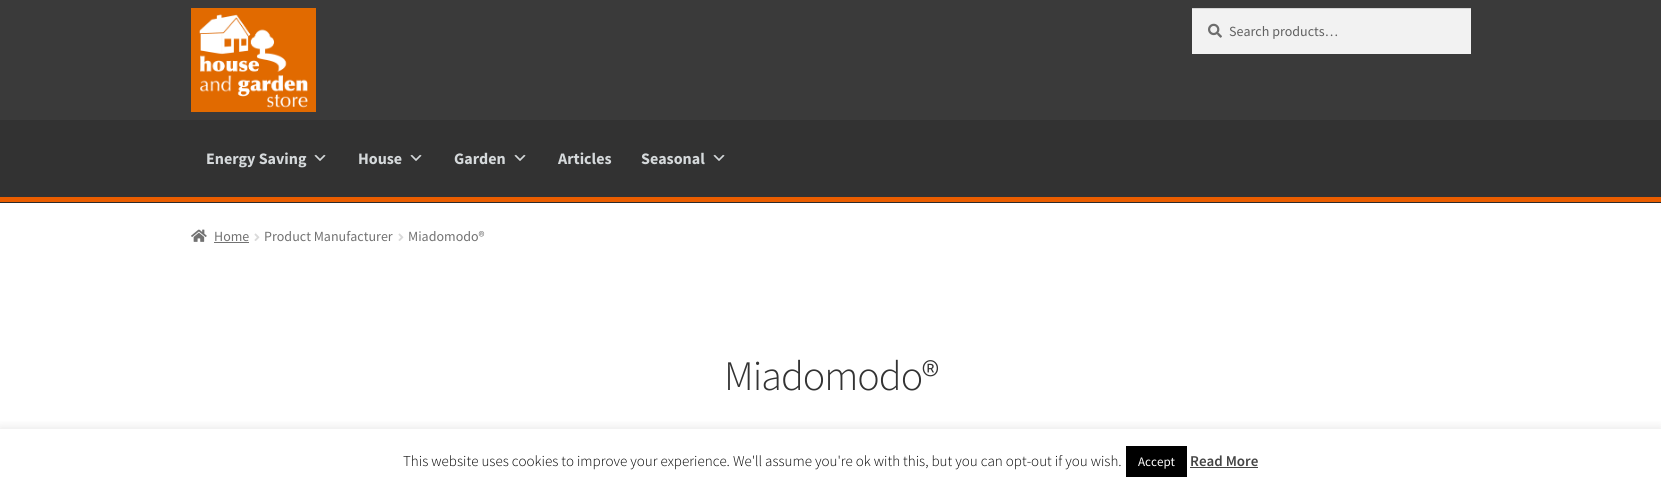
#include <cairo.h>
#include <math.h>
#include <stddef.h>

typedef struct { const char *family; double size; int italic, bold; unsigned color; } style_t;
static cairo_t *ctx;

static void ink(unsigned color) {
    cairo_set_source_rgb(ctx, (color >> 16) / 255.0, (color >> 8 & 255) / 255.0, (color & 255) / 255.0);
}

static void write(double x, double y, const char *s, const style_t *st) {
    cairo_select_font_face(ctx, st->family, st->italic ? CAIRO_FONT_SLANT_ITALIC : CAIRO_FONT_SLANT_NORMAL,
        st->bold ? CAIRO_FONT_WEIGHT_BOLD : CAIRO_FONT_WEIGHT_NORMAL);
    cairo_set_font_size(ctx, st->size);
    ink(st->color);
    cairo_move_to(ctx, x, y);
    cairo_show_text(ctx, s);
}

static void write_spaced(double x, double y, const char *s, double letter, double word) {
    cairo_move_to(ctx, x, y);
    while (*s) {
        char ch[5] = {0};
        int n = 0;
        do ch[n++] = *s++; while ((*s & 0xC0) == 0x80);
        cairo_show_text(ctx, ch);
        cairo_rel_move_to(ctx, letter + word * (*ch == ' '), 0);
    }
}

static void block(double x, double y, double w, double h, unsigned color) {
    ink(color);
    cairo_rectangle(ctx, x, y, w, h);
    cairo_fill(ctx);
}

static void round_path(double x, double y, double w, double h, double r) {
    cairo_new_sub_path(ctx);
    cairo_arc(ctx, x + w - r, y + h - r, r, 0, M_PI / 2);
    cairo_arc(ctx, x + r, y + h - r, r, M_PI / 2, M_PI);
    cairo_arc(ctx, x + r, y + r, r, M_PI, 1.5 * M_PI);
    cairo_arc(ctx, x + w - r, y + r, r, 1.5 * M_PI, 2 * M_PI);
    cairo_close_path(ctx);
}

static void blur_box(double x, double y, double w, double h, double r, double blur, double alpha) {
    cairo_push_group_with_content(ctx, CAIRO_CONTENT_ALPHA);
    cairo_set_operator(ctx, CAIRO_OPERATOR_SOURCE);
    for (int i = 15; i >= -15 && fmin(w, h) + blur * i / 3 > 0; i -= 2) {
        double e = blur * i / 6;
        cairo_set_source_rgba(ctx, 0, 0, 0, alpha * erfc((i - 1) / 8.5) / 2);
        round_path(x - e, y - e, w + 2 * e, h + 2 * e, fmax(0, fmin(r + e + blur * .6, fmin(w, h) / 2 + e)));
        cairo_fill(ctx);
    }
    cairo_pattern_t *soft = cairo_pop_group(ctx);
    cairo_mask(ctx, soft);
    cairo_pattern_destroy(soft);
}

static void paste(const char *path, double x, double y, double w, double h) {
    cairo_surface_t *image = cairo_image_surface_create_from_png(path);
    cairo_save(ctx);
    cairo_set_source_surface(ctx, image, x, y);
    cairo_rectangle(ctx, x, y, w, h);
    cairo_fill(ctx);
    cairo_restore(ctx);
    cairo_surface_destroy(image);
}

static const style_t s1 = {"Source Sans Pro", 14, 0, 0, 0x616161};
static const style_t s2 = {"Source Sans Pro", 16, 0, 1, 0xd5d9db};
static const style_t s3 = {"Source Sans Pro", 14, 0, 0, 0x727272};
static const style_t s4 = {"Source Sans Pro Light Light", 15, 0, 0, 0x000000};
static const style_t s5 = {"Source Sans Pro", 13, 0, 0, 0xffffff};
static const style_t s6 = {"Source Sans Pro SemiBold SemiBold", 15, 0, 0, 0x444444};

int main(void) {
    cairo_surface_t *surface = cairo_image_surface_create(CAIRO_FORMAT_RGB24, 1661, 489);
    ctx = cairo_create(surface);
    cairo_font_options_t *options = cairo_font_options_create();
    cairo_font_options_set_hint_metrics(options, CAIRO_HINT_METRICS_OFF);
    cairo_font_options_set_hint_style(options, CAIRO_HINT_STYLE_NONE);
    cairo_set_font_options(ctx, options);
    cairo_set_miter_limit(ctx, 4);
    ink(0xffffff);
    cairo_paint(ctx);
    block(0, 0, 1661, 120, 0x3a3a3a);
    block(0, 202, 1661, 1, 0x2b2b2b);
    paste("pic1.png", 191, 8, 125, 104);
    block(1192, 9, 279, 45, 0xf2f2f2);
    paste("pic2.png", 1208, 23, 14, 15);
    block(1192, 8, 279, 1, 0xd4d4d4);
    write(1229, 36, "Search products…", &s1);
    block(0, 120, 1661, 77, 0x323232);
    block(0, 197, 1661, 5, 0xea5d00);
    write(206, 164, "Energy Saving", &s2);
    paste("pic3.png", 314, 154, 12, 7);
    write(358, 164, "House", &s2);
    paste("pic3.png", 410, 154, 12, 7);
    write(454, 164, "Garden", &s2);
    paste("pic3.png", 514, 154, 12, 7);
    write(558, 164, "Articles", &s2);
    write(641, 164, "Seasonal", &s2);
    paste("pic3.png", 713, 154, 12, 7);
    paste("pic4.png", 191, 229, 16, 13);
    write(214, 241, "Home", &s3);
    block(214, 242, 35, 1, 0x727272);
    paste("pic5.png", 254, 233, 6, 8);
    write(264, 241, "Product Manufacturer", &s3);
    paste("pic5.png", 398, 233, 6, 8);
    write(408, 241, "Miadomodo®", &s3);
    cairo_select_font_face(ctx, "Source Sans Pro Light Light", CAIRO_FONT_SLANT_NORMAL, CAIRO_FONT_WEIGHT_NORMAL);
    cairo_set_font_size(ctx, 42);
    ink(0x333333);
    write_spaced(724, 390, "Miadomodo®", -1, 0);
    cairo_save(ctx);
    cairo_rectangle(ctx, 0, 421, 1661, 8);
    cairo_clip(ctx);
    ink(0xacabab);
    blur_box(0, 428, 1661, 60, 0, 5, 0.3);
    cairo_restore(ctx);
    write(403, 466, "This website uses cookies to improve your experience. We'll assume you're ok with this, but you can opt-out if you wish.", &s4);
    block(1126, 446, 61, 31, 0x000000);
    write(1138, 466, "Accept", &s5);
    write(1190, 466, "Read More", &s6);
    block(1190, 467, 68, 1, 0x444444);
    cairo_surface_write_to_png(surface, "screenshot.png");
    cairo_font_options_destroy(options);
    cairo_destroy(ctx);
    cairo_surface_destroy(surface);
    return 0;
}
